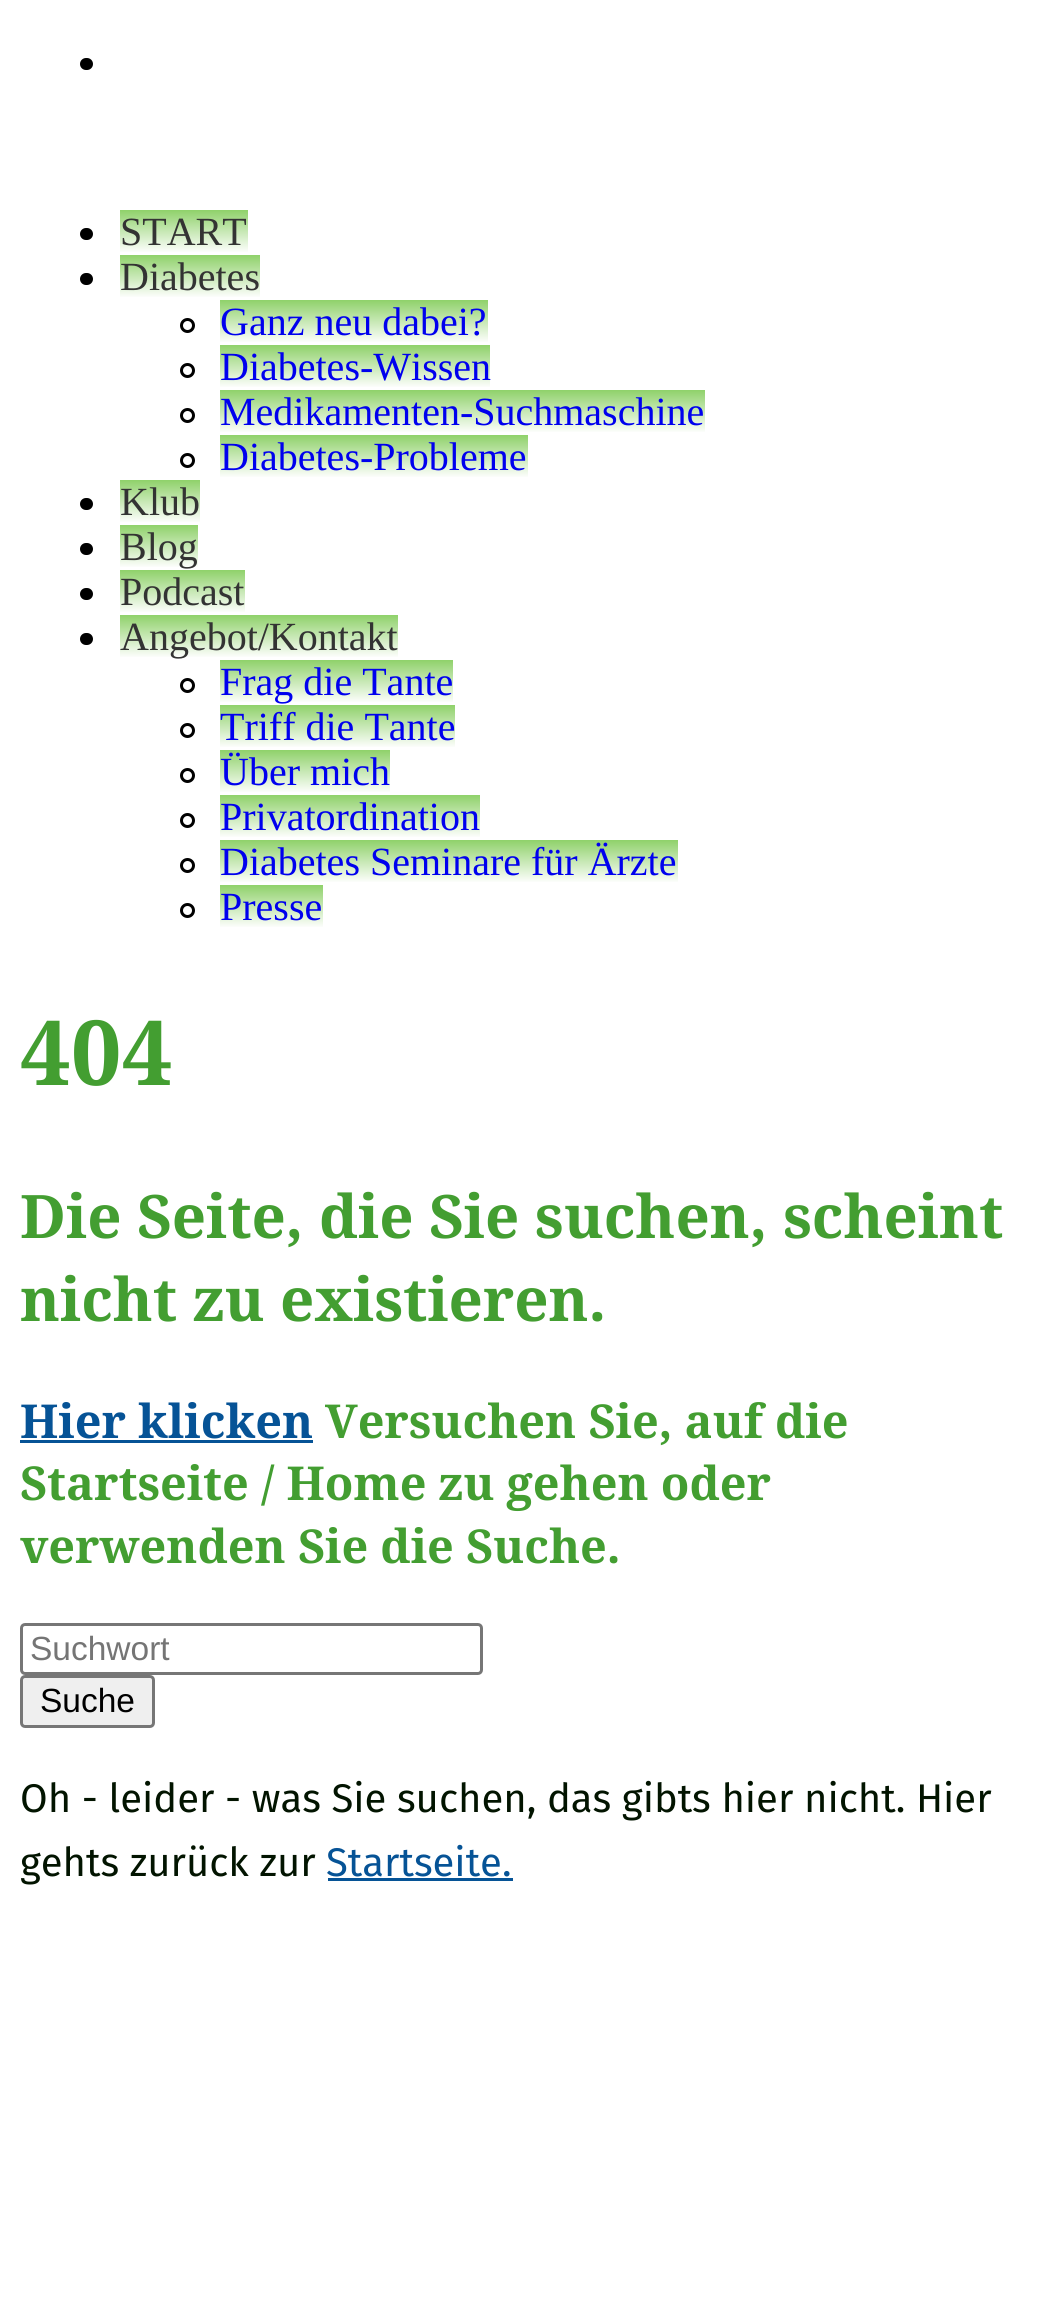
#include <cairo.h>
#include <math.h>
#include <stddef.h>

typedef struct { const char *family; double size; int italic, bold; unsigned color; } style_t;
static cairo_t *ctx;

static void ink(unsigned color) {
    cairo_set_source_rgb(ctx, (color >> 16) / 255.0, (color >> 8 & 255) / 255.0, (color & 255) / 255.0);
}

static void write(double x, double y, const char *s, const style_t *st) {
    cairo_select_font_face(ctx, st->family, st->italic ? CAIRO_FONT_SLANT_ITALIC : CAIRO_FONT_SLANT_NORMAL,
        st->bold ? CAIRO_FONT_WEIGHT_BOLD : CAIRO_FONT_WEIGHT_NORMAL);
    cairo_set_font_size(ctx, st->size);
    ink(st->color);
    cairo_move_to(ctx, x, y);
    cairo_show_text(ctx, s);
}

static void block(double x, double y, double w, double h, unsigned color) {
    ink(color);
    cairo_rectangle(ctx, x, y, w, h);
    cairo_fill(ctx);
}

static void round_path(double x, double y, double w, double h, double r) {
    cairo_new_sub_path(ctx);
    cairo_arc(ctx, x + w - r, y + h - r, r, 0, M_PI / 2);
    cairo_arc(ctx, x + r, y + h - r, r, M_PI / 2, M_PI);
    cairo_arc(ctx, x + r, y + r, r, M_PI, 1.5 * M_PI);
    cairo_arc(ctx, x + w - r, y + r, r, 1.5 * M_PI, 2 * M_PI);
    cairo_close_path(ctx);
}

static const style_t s1 = {"Liberation Serif", 40, 0, 0, 0x333333};
static const style_t s2 = {"Liberation Serif", 40, 0, 0, 0x0000ee};
static const style_t s3 = {"Noto Serif", 90, 0, 1, 0x439e31};
static const style_t s4 = {"Noto Serif", 60, 0, 1, 0x439e31};
static const style_t s5 = {"Noto Serif", 46.75, 0, 1, 0x065396};
static const style_t s6 = {"Noto Serif", 46.75, 0, 1, 0x439e31};
static const style_t s7 = {"Liberation Sans", 33.5, 0, 0, 0x757575};
static const style_t s8 = {"Liberation Sans", 33.5, 0, 0, 0x000000};
static const style_t s9 = {"Fira Sans", 40, 0, 0, 0x021400};
static const style_t s10 = {"Fira Sans", 40, 0, 0, 0x065396};

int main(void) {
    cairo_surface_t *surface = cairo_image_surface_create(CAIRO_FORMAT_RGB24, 1055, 2309);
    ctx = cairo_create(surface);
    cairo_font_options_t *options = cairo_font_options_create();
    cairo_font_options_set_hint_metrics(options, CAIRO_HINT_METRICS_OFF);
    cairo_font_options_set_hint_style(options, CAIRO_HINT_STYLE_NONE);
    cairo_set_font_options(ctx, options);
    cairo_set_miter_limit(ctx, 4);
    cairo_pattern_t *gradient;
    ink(0xffffff);
    cairo_paint(ctx);
    ink(0x000000);
    round_path(80, 58, 13, 12, 6);
    cairo_fill(ctx);
    round_path(80, 228, 13, 12, 6);
    cairo_fill(ctx);
    gradient = cairo_pattern_create_linear(184, 210, 184, 253);
    cairo_pattern_add_color_stop_rgba(gradient, 0, 0.561, 0.82, 0.416, 1);
    cairo_pattern_add_color_stop_rgba(gradient, 1, 1, 1, 1, 1);
    cairo_set_source(ctx, gradient);
    cairo_pattern_destroy(gradient);
    cairo_rectangle(ctx, 120, 210, 128, 42);
    cairo_fill(ctx);
    write(120, 245, "START", &s1);
    ink(0x000000);
    round_path(80, 273, 13, 12, 6);
    cairo_fill(ctx);
    gradient = cairo_pattern_create_linear(190, 255, 190, 298);
    cairo_pattern_add_color_stop_rgba(gradient, 0, 0.561, 0.82, 0.416, 1);
    cairo_pattern_add_color_stop_rgba(gradient, 1, 1, 1, 1, 1);
    cairo_set_source(ctx, gradient);
    cairo_pattern_destroy(gradient);
    cairo_rectangle(ctx, 120, 255, 140, 42);
    cairo_fill(ctx);
    write(120, 290, "Diabetes", &s1);
    cairo_new_path(ctx);
    cairo_arc(ctx, 187.5, 325.5, 6, 0, 2 * M_PI);
    ink(0x000000);
    cairo_set_line_width(ctx, 3);
    cairo_stroke(ctx);
    gradient = cairo_pattern_create_linear(354, 300, 354, 343);
    cairo_pattern_add_color_stop_rgba(gradient, 0, 0.561, 0.82, 0.416, 1);
    cairo_pattern_add_color_stop_rgba(gradient, 1, 1, 1, 1, 1);
    cairo_set_source(ctx, gradient);
    cairo_pattern_destroy(gradient);
    cairo_rectangle(ctx, 220, 300, 268, 42);
    cairo_fill(ctx);
    write(220, 335, "Ganz neu dabei?", &s2);
    cairo_new_path(ctx);
    cairo_arc(ctx, 187.5, 370.5, 6, 0, 2 * M_PI);
    ink(0x000000);
    cairo_stroke(ctx);
    gradient = cairo_pattern_create_linear(355, 345, 355, 388);
    cairo_pattern_add_color_stop_rgba(gradient, 0, 0.561, 0.82, 0.416, 1);
    cairo_pattern_add_color_stop_rgba(gradient, 1, 1, 1, 1, 1);
    cairo_set_source(ctx, gradient);
    cairo_pattern_destroy(gradient);
    cairo_rectangle(ctx, 220, 345, 270, 42);
    cairo_fill(ctx);
    write(220, 380, "Diabetes-Wissen", &s2);
    cairo_new_path(ctx);
    cairo_arc(ctx, 187.5, 415.5, 6, 0, 2 * M_PI);
    ink(0x000000);
    cairo_stroke(ctx);
    gradient = cairo_pattern_create_linear(463, 390, 463, 433);
    cairo_pattern_add_color_stop_rgba(gradient, 0, 0.561, 0.82, 0.416, 1);
    cairo_pattern_add_color_stop_rgba(gradient, 1, 1, 1, 1, 1);
    cairo_set_source(ctx, gradient);
    cairo_pattern_destroy(gradient);
    cairo_rectangle(ctx, 220, 390, 485, 42);
    cairo_fill(ctx);
    write(220, 425, "Medikamenten-Suchmaschine", &s2);
    cairo_new_path(ctx);
    cairo_arc(ctx, 187.5, 460.5, 6, 0, 2 * M_PI);
    ink(0x000000);
    cairo_stroke(ctx);
    gradient = cairo_pattern_create_linear(374, 435, 374, 478);
    cairo_pattern_add_color_stop_rgba(gradient, 0, 0.561, 0.82, 0.416, 1);
    cairo_pattern_add_color_stop_rgba(gradient, 1, 1, 1, 1, 1);
    cairo_set_source(ctx, gradient);
    cairo_pattern_destroy(gradient);
    cairo_rectangle(ctx, 220, 435, 308, 42);
    cairo_fill(ctx);
    write(220, 470, "Diabetes-Probleme", &s2);
    ink(0x000000);
    round_path(80, 498, 13, 12, 6);
    cairo_fill(ctx);
    gradient = cairo_pattern_create_linear(160, 480, 160, 523);
    cairo_pattern_add_color_stop_rgba(gradient, 0, 0.561, 0.82, 0.416, 1);
    cairo_pattern_add_color_stop_rgba(gradient, 1, 1, 1, 1, 1);
    cairo_set_source(ctx, gradient);
    cairo_pattern_destroy(gradient);
    cairo_rectangle(ctx, 120, 480, 80, 42);
    cairo_fill(ctx);
    write(120, 515, "Klub", &s1);
    ink(0x000000);
    round_path(80, 543, 13, 12, 6);
    cairo_fill(ctx);
    gradient = cairo_pattern_create_linear(159, 525, 159, 568);
    cairo_pattern_add_color_stop_rgba(gradient, 0, 0.561, 0.82, 0.416, 1);
    cairo_pattern_add_color_stop_rgba(gradient, 1, 1, 1, 1, 1);
    cairo_set_source(ctx, gradient);
    cairo_pattern_destroy(gradient);
    cairo_rectangle(ctx, 120, 525, 78, 42);
    cairo_fill(ctx);
    write(120, 560, "Blog", &s1);
    ink(0x000000);
    round_path(80, 588, 13, 12, 6);
    cairo_fill(ctx);
    gradient = cairo_pattern_create_linear(183, 570, 183, 613);
    cairo_pattern_add_color_stop_rgba(gradient, 0, 0.561, 0.82, 0.416, 1);
    cairo_pattern_add_color_stop_rgba(gradient, 1, 1, 1, 1, 1);
    cairo_set_source(ctx, gradient);
    cairo_pattern_destroy(gradient);
    cairo_rectangle(ctx, 120, 570, 125, 42);
    cairo_fill(ctx);
    write(120, 605, "Podcast", &s1);
    ink(0x000000);
    round_path(80, 633, 13, 12, 6);
    cairo_fill(ctx);
    gradient = cairo_pattern_create_linear(259, 615, 259, 658);
    cairo_pattern_add_color_stop_rgba(gradient, 0, 0.561, 0.82, 0.416, 1);
    cairo_pattern_add_color_stop_rgba(gradient, 1, 1, 1, 1, 1);
    cairo_set_source(ctx, gradient);
    cairo_pattern_destroy(gradient);
    cairo_rectangle(ctx, 120, 615, 278, 42);
    cairo_fill(ctx);
    write(120, 650, "Angebot/Kontakt", &s1);
    cairo_new_path(ctx);
    cairo_arc(ctx, 187.5, 685.5, 6, 0, 2 * M_PI);
    ink(0x000000);
    cairo_stroke(ctx);
    gradient = cairo_pattern_create_linear(336, 660, 336, 703);
    cairo_pattern_add_color_stop_rgba(gradient, 0, 0.561, 0.82, 0.416, 1);
    cairo_pattern_add_color_stop_rgba(gradient, 1, 1, 1, 1, 1);
    cairo_set_source(ctx, gradient);
    cairo_pattern_destroy(gradient);
    cairo_rectangle(ctx, 220, 660, 233, 42);
    cairo_fill(ctx);
    write(220, 695, "Frag die Tante", &s2);
    cairo_new_path(ctx);
    cairo_arc(ctx, 187.5, 730.5, 6, 0, 2 * M_PI);
    ink(0x000000);
    cairo_stroke(ctx);
    gradient = cairo_pattern_create_linear(338, 705, 338, 748);
    cairo_pattern_add_color_stop_rgba(gradient, 0, 0.561, 0.82, 0.416, 1);
    cairo_pattern_add_color_stop_rgba(gradient, 1, 1, 1, 1, 1);
    cairo_set_source(ctx, gradient);
    cairo_pattern_destroy(gradient);
    cairo_rectangle(ctx, 220, 705, 235, 42);
    cairo_fill(ctx);
    write(220, 740, "Triff die Tante", &s2);
    cairo_new_path(ctx);
    cairo_arc(ctx, 187.5, 775.5, 6, 0, 2 * M_PI);
    ink(0x000000);
    cairo_stroke(ctx);
    gradient = cairo_pattern_create_linear(305, 750, 305, 793);
    cairo_pattern_add_color_stop_rgba(gradient, 0, 0.561, 0.82, 0.416, 1);
    cairo_pattern_add_color_stop_rgba(gradient, 1, 1, 1, 1, 1);
    cairo_set_source(ctx, gradient);
    cairo_pattern_destroy(gradient);
    cairo_rectangle(ctx, 220, 750, 170, 42);
    cairo_fill(ctx);
    write(220, 785, "Über mich", &s2);
    cairo_new_path(ctx);
    cairo_arc(ctx, 187.5, 820.5, 6, 0, 2 * M_PI);
    ink(0x000000);
    cairo_stroke(ctx);
    gradient = cairo_pattern_create_linear(350, 795, 350, 838);
    cairo_pattern_add_color_stop_rgba(gradient, 0, 0.561, 0.82, 0.416, 1);
    cairo_pattern_add_color_stop_rgba(gradient, 1, 1, 1, 1, 1);
    cairo_set_source(ctx, gradient);
    cairo_pattern_destroy(gradient);
    cairo_rectangle(ctx, 220, 795, 260, 42);
    cairo_fill(ctx);
    write(220, 830, "Privatordination", &s2);
    cairo_new_path(ctx);
    cairo_arc(ctx, 187.5, 865.5, 6, 0, 2 * M_PI);
    ink(0x000000);
    cairo_stroke(ctx);
    gradient = cairo_pattern_create_linear(449, 840, 449, 883);
    cairo_pattern_add_color_stop_rgba(gradient, 0, 0.561, 0.82, 0.416, 1);
    cairo_pattern_add_color_stop_rgba(gradient, 1, 1, 1, 1, 1);
    cairo_set_source(ctx, gradient);
    cairo_pattern_destroy(gradient);
    cairo_rectangle(ctx, 220, 840, 458, 42);
    cairo_fill(ctx);
    write(220, 875, "Diabetes Seminare für Ärzte", &s2);
    cairo_new_path(ctx);
    cairo_arc(ctx, 187.5, 910.5, 6, 0, 2 * M_PI);
    ink(0x000000);
    cairo_stroke(ctx);
    gradient = cairo_pattern_create_linear(271, 885, 271, 928);
    cairo_pattern_add_color_stop_rgba(gradient, 0, 0.561, 0.82, 0.416, 1);
    cairo_pattern_add_color_stop_rgba(gradient, 1, 1, 1, 1, 1);
    cairo_set_source(ctx, gradient);
    cairo_pattern_destroy(gradient);
    cairo_rectangle(ctx, 220, 885, 103, 42);
    cairo_fill(ctx);
    write(220, 920, "Presse", &s2);
    write(20, 1085, "404", &s3);
    write(20, 1238, "Die Seite, die Sie suchen, scheint", &s4);
    write(20, 1321, "nicht zu existieren.", &s4);
    write(20, 1438, "Hier klicken", &s5);
    block(20, 1440, 293, 3, 0x065396);
    write(325, 1438, "Versuchen Sie, auf die", &s6);
    write(20, 1500, "Startseite / Home zu gehen oder", &s6);
    write(20, 1563, "verwenden Sie die Suche.", &s6);
    round_path(21.5, 1624.5, 460, 49, 3.5);
    ink(0x767676);
    cairo_stroke(ctx);
    write(30, 1660, "Suchwort", &s7);
    ink(0xefefef);
    round_path(21.5, 1676.5, 132, 50, 3.5);
    cairo_fill_preserve(ctx);
    ink(0x767676);
    cairo_stroke(ctx);
    write(40, 1712, "Suche", &s8);
    write(20, 1812, "Oh - leider - was Sie suchen, das gibts hier nicht. Hier", &s9);
    write(20, 1876, "gehts zurück zur", &s9);
    write(326, 1876, "Startseite.", &s10);
    block(328, 1878, 185, 3, 0x065396);
    cairo_surface_write_to_png(surface, "screenshot.png");
    cairo_font_options_destroy(options);
    cairo_destroy(ctx);
    cairo_surface_destroy(surface);
    return 0;
}
